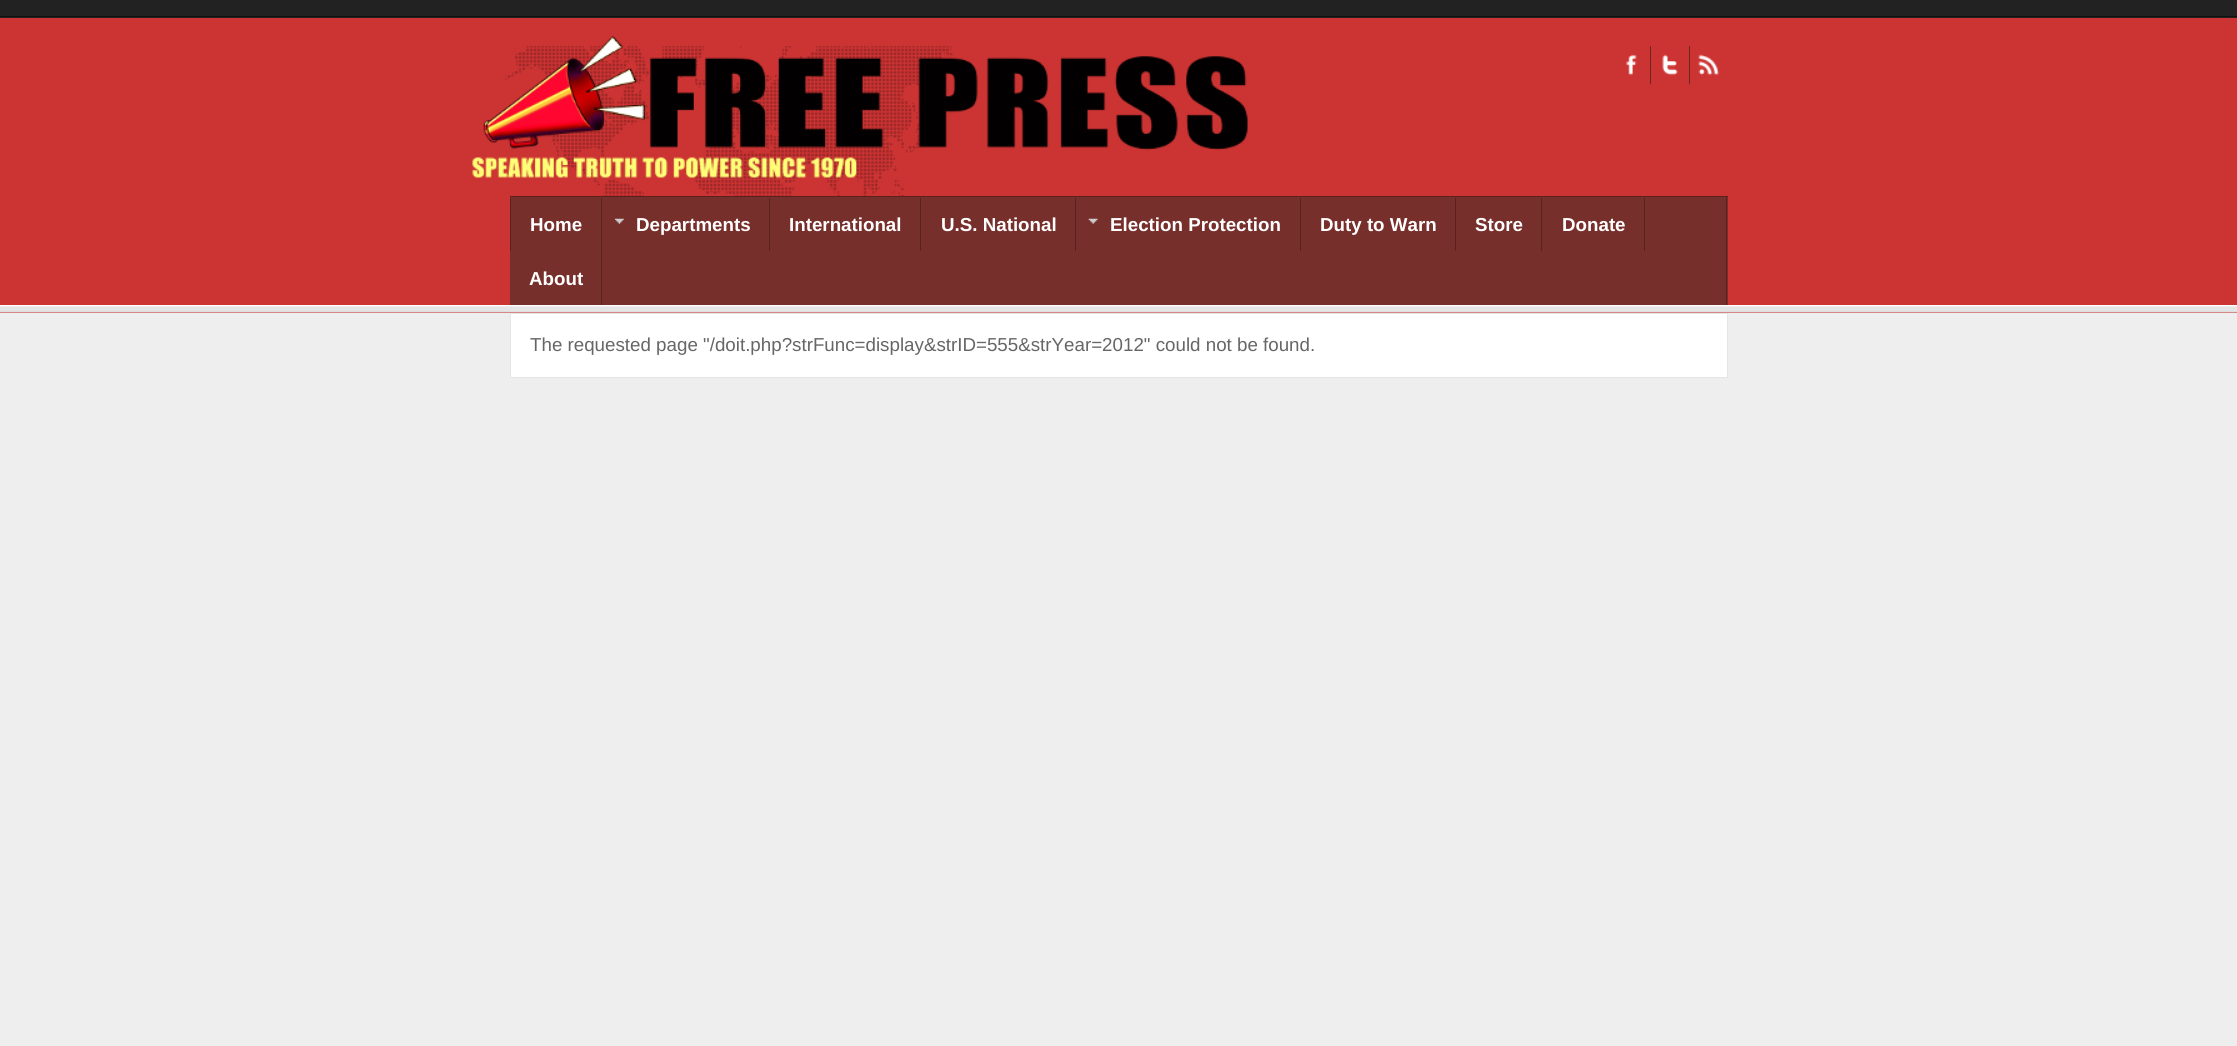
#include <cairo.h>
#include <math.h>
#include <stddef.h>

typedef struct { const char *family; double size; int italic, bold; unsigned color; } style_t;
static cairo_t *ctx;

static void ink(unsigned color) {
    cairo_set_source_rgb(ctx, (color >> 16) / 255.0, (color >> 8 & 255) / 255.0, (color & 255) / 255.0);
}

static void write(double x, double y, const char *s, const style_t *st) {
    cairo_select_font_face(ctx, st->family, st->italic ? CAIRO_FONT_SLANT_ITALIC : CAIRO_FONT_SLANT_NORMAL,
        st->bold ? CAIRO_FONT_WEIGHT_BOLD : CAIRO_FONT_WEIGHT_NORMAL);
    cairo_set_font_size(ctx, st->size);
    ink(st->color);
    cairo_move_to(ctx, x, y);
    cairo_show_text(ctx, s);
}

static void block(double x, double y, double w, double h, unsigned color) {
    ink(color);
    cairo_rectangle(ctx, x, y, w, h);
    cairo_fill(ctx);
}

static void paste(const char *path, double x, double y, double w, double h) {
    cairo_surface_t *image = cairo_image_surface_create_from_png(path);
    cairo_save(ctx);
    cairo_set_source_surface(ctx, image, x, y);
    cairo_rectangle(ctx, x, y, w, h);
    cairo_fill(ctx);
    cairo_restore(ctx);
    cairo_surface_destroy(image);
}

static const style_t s1 = {"Liberation Sans", 18.75, 0, 1, 0xffffff};
static const style_t s2 = {"Liberation Sans", 18.75, 0, 0, 0x666666};

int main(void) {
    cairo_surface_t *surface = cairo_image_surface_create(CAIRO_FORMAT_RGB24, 2237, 1046);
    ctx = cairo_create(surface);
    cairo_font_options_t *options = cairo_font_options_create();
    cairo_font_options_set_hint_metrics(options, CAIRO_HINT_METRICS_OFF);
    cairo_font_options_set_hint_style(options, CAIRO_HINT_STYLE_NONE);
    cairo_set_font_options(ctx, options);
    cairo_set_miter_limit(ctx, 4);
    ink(0xeeeeee);
    cairo_paint(ctx);
    block(0, 0, 2237, 18, 0x222222);
    block(0, 16, 2237, 1, 0x111111);
    block(0, 18, 2237, 295, 0xcc3333);
    paste("pic1.png", 505, 46, 448, 150);
    paste("pic2.png", 472, 36, 776, 142);
    paste("pic3.png", 1626, 54, 11, 22);
    paste("pic4.png", 1662, 54, 16, 22);
    block(1650, 46, 1, 38, 0x682725);
    paste("pic5.png", 1698, 54, 21, 22);
    block(1689, 46, 1, 38, 0x682725);
    paste("pic6.png", 0, 305, 2237, 8);
    block(510, 197, 1218, 108, 0x772f2c);
    block(510, 196, 1218, 1, 0x5b211f);
    block(1726, 196, 1, 109, 0x5b211f);
    block(601, 198, 1, 107, 0x5b211f);
    block(510, 198, 1, 53, 0x5b211f);
    write(530, 231, "Home", &s1);
    block(769, 198, 1, 53, 0x5b211f);
    paste("pic7.png", 615, 218, 9, 6);
    write(636, 231, "Departments", &s1);
    block(920, 198, 1, 53, 0x5b211f);
    write(789, 231, "International", &s1);
    block(1075, 198, 1, 53, 0x5b211f);
    write(941, 231, "U.S. National", &s1);
    block(1300, 198, 1, 53, 0x5b211f);
    paste("pic8.png", 1088, 218, 10, 6);
    write(1110, 231, "Election Protection", &s1);
    block(1455, 198, 1, 53, 0x5b211f);
    write(1320, 231, "Duty to Warn", &s1);
    block(1541, 198, 1, 53, 0x5b211f);
    write(1475, 231, "Store", &s1);
    block(1644, 198, 1, 53, 0x5b211f);
    write(1562, 231, "Donate", &s1);
    write(529, 285, "About", &s1);
    cairo_rectangle(ctx, 510.5, 313.5, 1217, 64);
    cairo_fill_preserve(ctx);
    ink(0xe5e5e5);
    cairo_set_line_width(ctx, 1);
    cairo_stroke(ctx);
    write(530, 351, "The requested page \"/doit.php?strFunc=display&strID=555&strYear=2012\" could not be found.", &s2);
    cairo_surface_write_to_png(surface, "screenshot.png");
    cairo_font_options_destroy(options);
    cairo_destroy(ctx);
    cairo_surface_destroy(surface);
    return 0;
}
